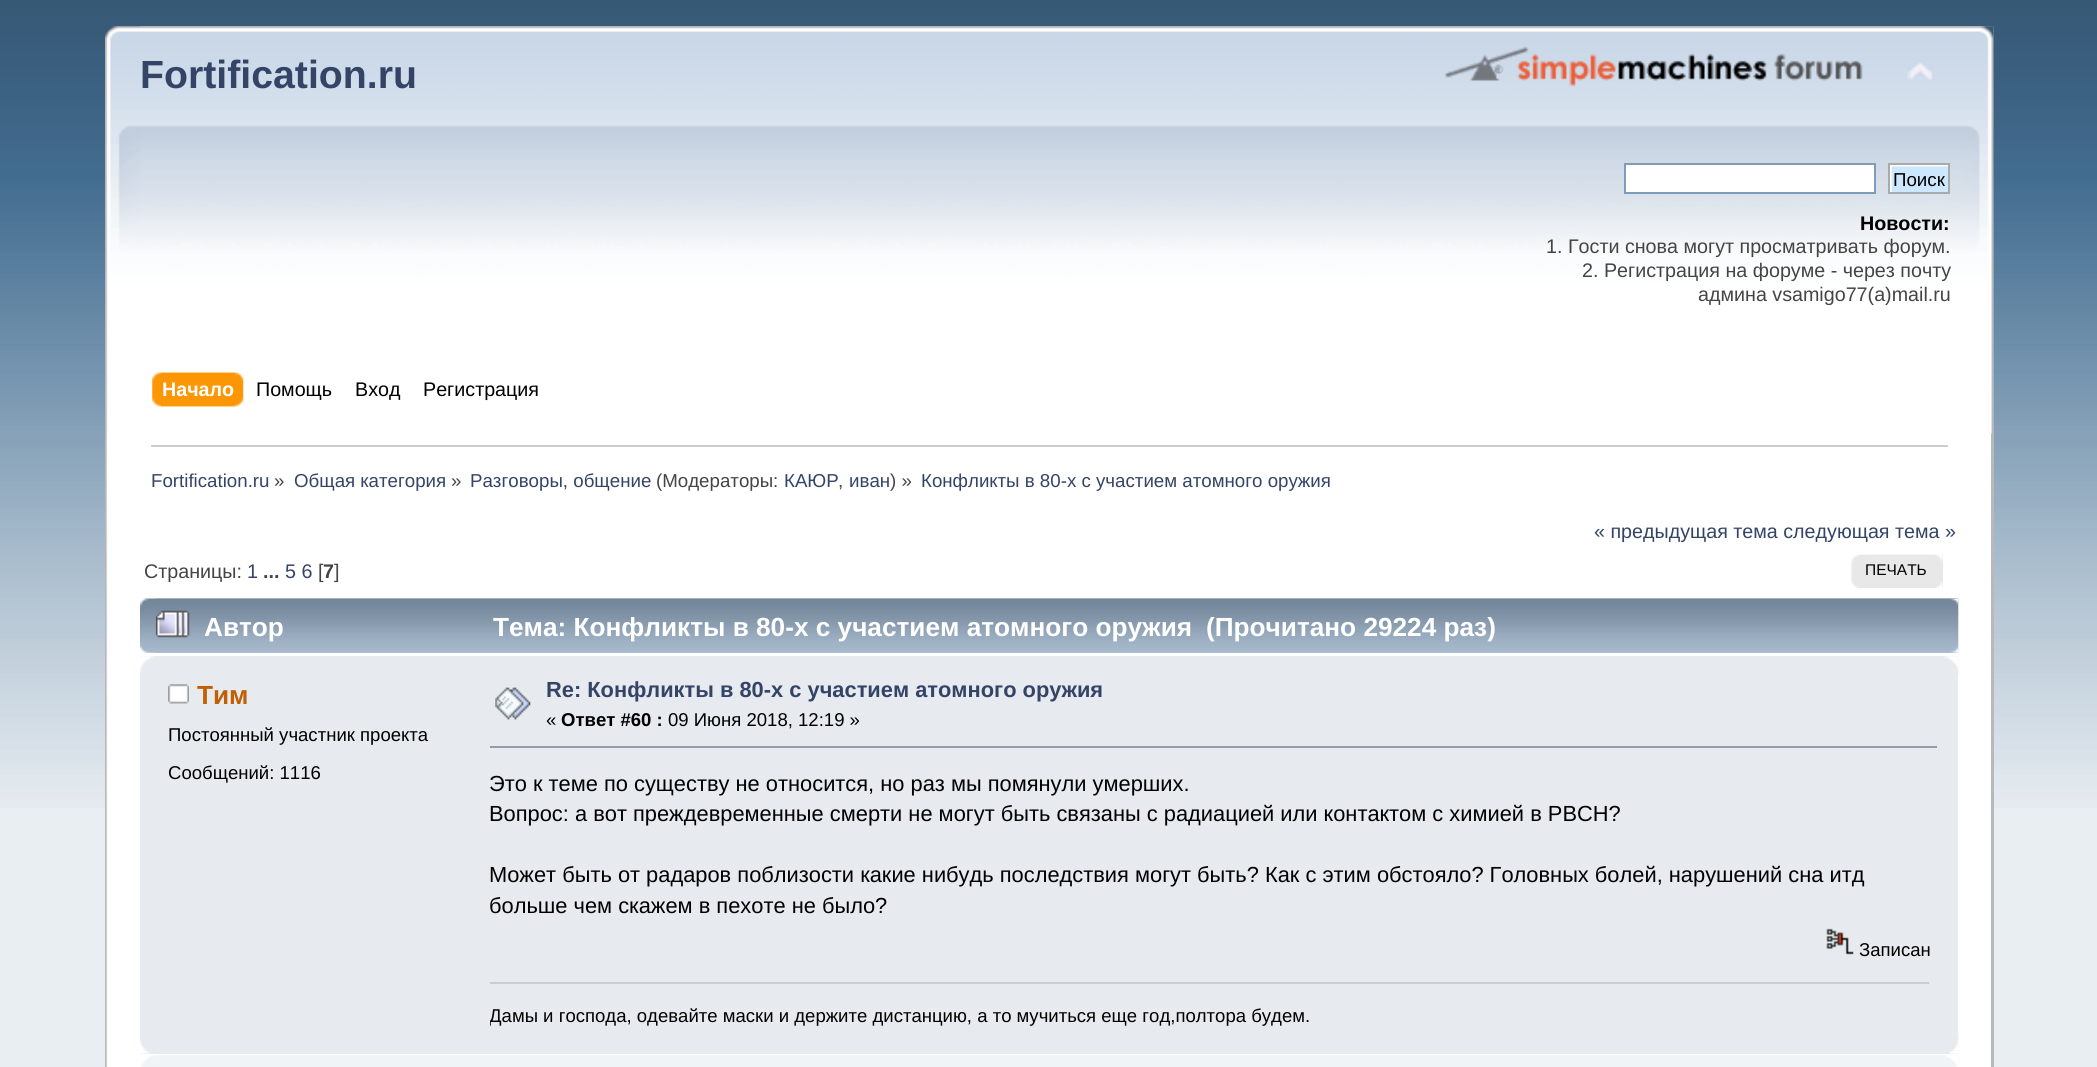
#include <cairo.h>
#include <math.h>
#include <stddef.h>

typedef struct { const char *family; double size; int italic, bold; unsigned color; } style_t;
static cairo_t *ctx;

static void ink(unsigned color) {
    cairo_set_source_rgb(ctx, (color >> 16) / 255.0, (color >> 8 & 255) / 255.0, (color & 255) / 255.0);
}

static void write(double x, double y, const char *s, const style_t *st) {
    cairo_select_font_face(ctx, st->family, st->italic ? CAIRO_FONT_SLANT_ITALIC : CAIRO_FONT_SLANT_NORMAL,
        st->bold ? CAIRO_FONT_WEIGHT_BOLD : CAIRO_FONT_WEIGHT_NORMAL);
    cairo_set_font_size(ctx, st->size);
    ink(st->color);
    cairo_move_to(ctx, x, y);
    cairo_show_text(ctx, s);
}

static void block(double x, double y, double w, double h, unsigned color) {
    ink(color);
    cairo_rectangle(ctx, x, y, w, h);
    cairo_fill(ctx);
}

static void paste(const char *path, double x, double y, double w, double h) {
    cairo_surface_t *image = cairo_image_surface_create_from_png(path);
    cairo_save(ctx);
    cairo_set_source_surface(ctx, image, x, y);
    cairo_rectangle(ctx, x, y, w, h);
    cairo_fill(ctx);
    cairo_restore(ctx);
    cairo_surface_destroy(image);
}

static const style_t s1 = {"Liberation Sans", 39.25, 0, 1, 0x334466};
static const style_t s2 = {"Liberation Sans", 18.7, 0, 0, 0x000000};
static const style_t s3 = {"Liberation Sans", 19.7, 0, 1, 0x000000};
static const style_t s4 = {"Liberation Sans", 19.7, 0, 0, 0x444444};
static const style_t s5 = {"Liberation Sans", 19.7, 0, 1, 0xffffff};
static const style_t s6 = {"Liberation Sans", 19.7, 0, 0, 0x000000};
static const style_t s7 = {"Liberation Sans", 18.7, 0, 0, 0x334466};
static const style_t s8 = {"Liberation Sans", 18.7, 0, 0, 0x444444};
static const style_t s9 = {"Liberation Sans", 19.7, 0, 0, 0x334466};
static const style_t s10 = {"Liberation Sans", 19.7, 0, 1, 0x444444};
static const style_t s11 = {"Liberation Sans", 15.5, 0, 0, 0x000000};
static const style_t s12 = {"Liberation Sans", 26.2, 0, 1, 0xffffff};
static const style_t s13 = {"Liberation Sans", 26.2, 0, 1, 0xc06002};
static const style_t s14 = {"Liberation Sans", 18.55, 0, 0, 0x000000};
static const style_t s15 = {"Liberation Sans", 21.85, 0, 1, 0x334466};
static const style_t s16 = {"Liberation Sans", 18.55, 0, 1, 0x000000};
static const style_t s17 = {"Liberation Sans", 21.85, 0, 0, 0x000000};

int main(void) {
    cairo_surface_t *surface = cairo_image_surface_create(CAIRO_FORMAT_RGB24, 2097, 1067);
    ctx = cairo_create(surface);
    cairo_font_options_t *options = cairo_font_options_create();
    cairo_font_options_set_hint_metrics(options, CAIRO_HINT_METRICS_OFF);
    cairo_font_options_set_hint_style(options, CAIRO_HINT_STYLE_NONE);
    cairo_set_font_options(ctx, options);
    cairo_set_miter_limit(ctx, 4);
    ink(0xe9eef2);
    cairo_paint(ctx);
    paste("pic1.png", 0, 0, 2097, 808);
    paste("pic2.png", 105, 26, 1889, 408);
    paste("pic3.png", 140, 26, 1854, 408);
    write(140, 88, "Fortification.ru", &s1);
    paste("pic4.png", 1445, 47, 418, 40);
    paste("pic5.png", 1907, 62, 26, 20);
    ink(0xffffff);
    cairo_rectangle(ctx, 1625, 164, 250, 29);
    cairo_fill_preserve(ctx);
    ink(0x7f9db9);
    cairo_stroke(ctx);
    paste("pic6.png", 1890, 165, 60, 30);
    cairo_rectangle(ctx, 1889, 164, 60, 29);
    ink(0xaaaaaa);
    cairo_stroke(ctx);
    write(1893, 186, "Поиск", &s2);
    write(1860, 230, "Новости:", &s3);
    write(1546, 253, "1. Гости снова могут просматривать форум.", &s4);
    write(1582, 277, "2. Регистрация на форуме - через почту", &s4);
    write(1698, 301, "админа vsamigo77(a)mail.ru", &s4);
    paste("pic7.png", 161, 372, 83, 35);
    paste("pic8.png", 152, 372, 83, 35);
    write(162, 396, "Начало", &s5);
    write(256, 396, "Помощь", &s6);
    write(355, 396, "Вход", &s6);
    write(423, 396, "Регистрация", &s6);
    paste("pic9.png", 105, 434, 1886, 633);
    block(1991, 434, 3, 633, 0xb9b9b9);
    block(151, 445, 1797, 2, 0xcccccc);
    write(151, 487, "Fortification.ru", &s7);
    write(274, 487, "»", &s8);
    write(294, 487, "Общая категория", &s7);
    write(451, 487, "»", &s8);
    write(470, 487, "Разговоры, общение", &s7);
    write(656, 487, "(Модераторы:", &s8);
    write(784, 487, "КАЮР", &s7);
    write(838, 487, ",", &s8);
    write(849, 487, "иван", &s7);
    write(890, 487, ") »", &s8);
    write(921, 487, "Конфликты в 80-х с участием атомного оружия", &s7);
    write(1594, 538, "« предыдущая тема следующая тема »", &s9);
    write(144, 578, "Страницы:", &s4);
    write(247, 578, "1", &s9);
    write(263, 578, "...", &s10);
    write(285, 578, "5 6", &s9);
    write(318, 578, "[", &s4);
    write(323, 578, "7", &s10);
    write(334, 578, "]", &s4);
    block(1942, 555, 1, 33, 0xe8e8e8);
    paste("pic10.png", 1851, 554, 91, 34);
    paste("pic11.png", 1866, 554, 77, 34);
    write(1865, 575, "ПЕЧАТЬ", &s11);
    paste("pic12.png", 140, 598, 1819, 55);
    paste("pic13.png", 155, 598, 1804, 55);
    paste("pic14.png", 155, 610, 35, 28);
    write(204, 636, "Автор", &s12);
    write(493, 636, "Тема: Конфликты в 80-х с участием атомного оружия", &s12);
    write(1206, 636, "(Прочитано 29224 раз)", &s12);
    block(140, 656, 1818, 398, 0xe7eaef);
    paste("pic15.png", 140, 656, 1819, 19);
    paste("pic16.png", 1944, 656, 15, 19);
    paste("pic17.png", 168, 684, 21, 20);
    write(197, 704, "Тим", &s13);
    write(168, 741, "Постоянный участник проекта", &s14);
    write(168, 779, "Сообщений: 1116", &s14);
    paste("pic18.png", 495, 687, 36, 33);
    write(546, 697, "Re: Конфликты в 80-х с участием атомного оружия", &s15);
    write(546, 726, "«", &s14);
    write(561, 726, "Ответ #60 :", &s16);
    write(668, 726, "09 Июня 2018, 12:19 »", &s14);
    block(490, 746, 1447, 2, 0x9999aa);
    write(489, 791, "Это к теме по существу не относится, но раз мы помянули умерших.", &s17);
    write(489, 821, "Вопрос: а вот преждевременные смерти не могут быть связаны с радиацией или контактом с химией в РВСН?", &s17);
    write(489, 882, "Может быть от радаров поблизости какие нибудь последствия могут быть? Как с этим обстояло? Головных болей, нарушений сна итд", &s17);
    write(489, 913, "больше чем скажем в пехоте не было?", &s17);
    paste("pic19.png", 1826, 928, 28, 27);
    write(1859, 956, "Записан", &s14);
    block(490, 982, 1439, 2, 0xcccccc);
    cairo_save(ctx);
    cairo_rectangle(ctx, 490, 984, 1439, 50);
    cairo_clip(ctx);
    write(489, 1022, "Дамы и господа, одевайте маски и держите дистанцию, а то мучиться еще год,полтора будем.", &s14);
    cairo_restore(ctx);
    paste("pic20.png", 140, 1035, 1819, 19);
    paste("pic21.png", 1949, 1035, 10, 19);
    paste("pic22.png", 140, 1055, 1819, 12);
    paste("pic23.png", 1945, 1055, 13, 12);
    cairo_surface_write_to_png(surface, "screenshot.png");
    cairo_font_options_destroy(options);
    cairo_destroy(ctx);
    cairo_surface_destroy(surface);
    return 0;
}
